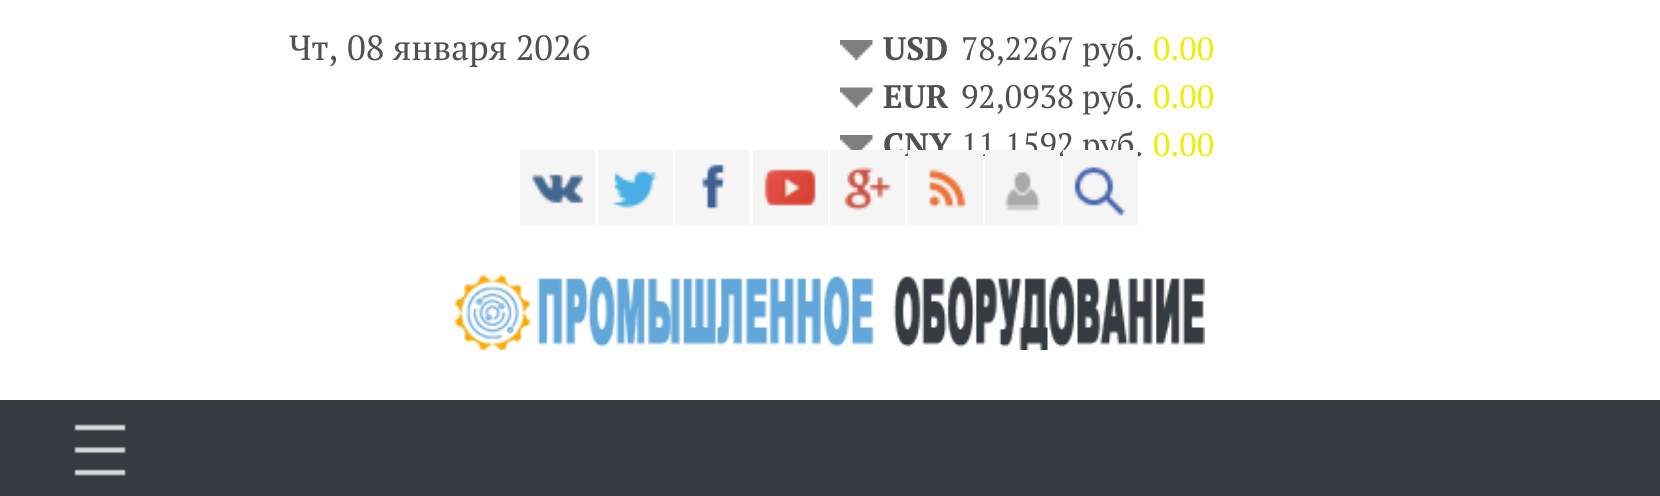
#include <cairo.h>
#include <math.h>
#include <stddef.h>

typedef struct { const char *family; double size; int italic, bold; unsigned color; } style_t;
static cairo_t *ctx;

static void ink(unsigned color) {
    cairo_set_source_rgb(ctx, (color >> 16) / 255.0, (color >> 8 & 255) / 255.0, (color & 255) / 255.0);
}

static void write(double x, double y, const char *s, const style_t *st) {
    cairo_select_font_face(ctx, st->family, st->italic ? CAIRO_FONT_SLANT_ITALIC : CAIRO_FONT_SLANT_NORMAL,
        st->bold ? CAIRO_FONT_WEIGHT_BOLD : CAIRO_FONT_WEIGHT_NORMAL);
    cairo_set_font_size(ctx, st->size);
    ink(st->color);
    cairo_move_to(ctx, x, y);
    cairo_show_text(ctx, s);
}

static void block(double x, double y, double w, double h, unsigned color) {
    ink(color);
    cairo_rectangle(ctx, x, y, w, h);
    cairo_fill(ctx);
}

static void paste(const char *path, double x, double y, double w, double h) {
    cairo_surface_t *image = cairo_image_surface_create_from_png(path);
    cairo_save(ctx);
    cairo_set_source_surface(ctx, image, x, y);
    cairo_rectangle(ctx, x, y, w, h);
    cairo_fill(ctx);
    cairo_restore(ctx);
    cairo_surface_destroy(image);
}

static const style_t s1 = {"PT Serif", 35, 0, 0, 0x505050};
static const style_t s2 = {"PT Serif", 32.5, 0, 1, 0x505050};
static const style_t s3 = {"PT Serif", 32.5, 0, 0, 0x505050};
static const style_t s4 = {"PT Serif", 32.5, 0, 0, 0xeeee00};

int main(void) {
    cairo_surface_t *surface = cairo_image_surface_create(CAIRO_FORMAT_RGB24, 1660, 496);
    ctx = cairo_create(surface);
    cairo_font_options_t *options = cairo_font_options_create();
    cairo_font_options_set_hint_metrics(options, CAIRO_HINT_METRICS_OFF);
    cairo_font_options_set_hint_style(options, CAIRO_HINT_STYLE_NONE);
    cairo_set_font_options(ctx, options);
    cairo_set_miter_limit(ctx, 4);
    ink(0xffffff);
    cairo_paint(ctx);
    write(289, 60, "Чт, 08 января 2026", &s1);
    paste("pic1.png", 840, 40, 33, 20);
    write(883, 60, "USD", &s2);
    write(961, 60, "78,2267 руб.", &s3);
    write(1153, 60, "0.00", &s4);
    paste("pic2.png", 840, 87, 33, 21);
    write(883, 108, "EUR", &s2);
    write(961, 108, "92,0938 руб.", &s3);
    write(1153, 108, "0.00", &s4);
    paste("pic3.png", 840, 135, 33, 15);
    write(883, 156, "CNY", &s2);
    write(961, 156, "11,1592 руб.", &s3);
    write(1153, 156, "0.00", &s4);
    block(520, 150, 75, 75, 0xf5f5f5);
    paste("pic4.png", 531, 174, 53, 30);
    block(598, 150, 75, 75, 0xf5f5f5);
    paste("pic5.png", 612, 169, 46, 40);
    block(675, 150, 75, 75, 0xf5f5f5);
    paste("pic6.png", 701, 164, 25, 46);
    block(753, 150, 75, 75, 0xf5f5f5);
    paste("pic7.png", 764, 169, 52, 37);
    block(830, 150, 75, 75, 0xf5f5f5);
    paste("pic8.png", 844, 167, 47, 44);
    block(908, 150, 75, 75, 0xf5f5f5);
    paste("pic9.png", 928, 169, 38, 40);
    block(985, 150, 75, 75, 0xf5f5f5);
    paste("pic10.png", 1004, 171, 37, 40);
    block(1063, 150, 75, 75, 0xf5f5f5);
    paste("pic11.png", 1074, 166, 52, 50);
    paste("pic12.png", 455, 275, 750, 75);
    block(0, 400, 1660, 96, 0x353b41);
    paste("pic13.png", 74, 424, 52, 52);
    cairo_surface_write_to_png(surface, "screenshot.png");
    cairo_font_options_destroy(options);
    cairo_destroy(ctx);
    cairo_surface_destroy(surface);
    return 0;
}
